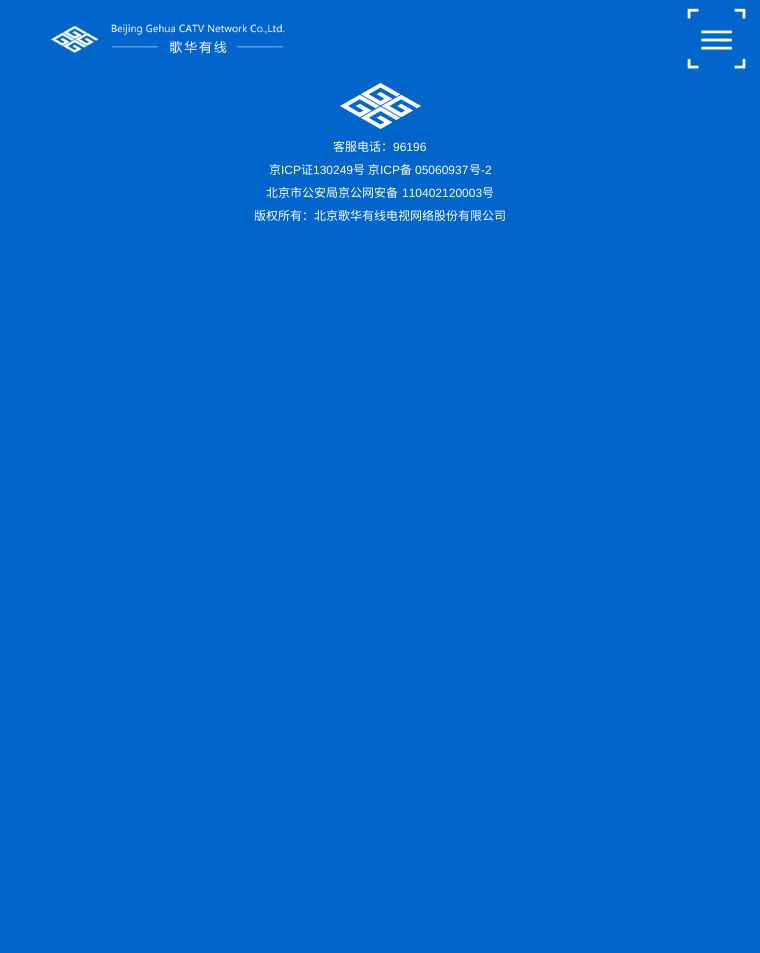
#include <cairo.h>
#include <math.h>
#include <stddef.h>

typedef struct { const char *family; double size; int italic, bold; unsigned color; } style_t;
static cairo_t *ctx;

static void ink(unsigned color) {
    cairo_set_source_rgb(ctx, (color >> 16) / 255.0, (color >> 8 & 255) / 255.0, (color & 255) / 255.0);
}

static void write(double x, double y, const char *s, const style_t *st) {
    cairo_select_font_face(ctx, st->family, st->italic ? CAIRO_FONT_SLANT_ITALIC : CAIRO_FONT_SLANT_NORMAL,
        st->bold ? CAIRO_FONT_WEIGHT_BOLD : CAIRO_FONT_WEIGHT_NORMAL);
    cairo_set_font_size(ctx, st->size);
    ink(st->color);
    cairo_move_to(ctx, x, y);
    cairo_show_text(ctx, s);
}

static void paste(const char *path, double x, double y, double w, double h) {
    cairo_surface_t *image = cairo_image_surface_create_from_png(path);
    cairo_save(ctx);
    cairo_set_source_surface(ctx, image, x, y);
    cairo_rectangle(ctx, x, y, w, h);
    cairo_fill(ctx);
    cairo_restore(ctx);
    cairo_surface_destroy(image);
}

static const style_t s1 = {"Noto Sans CJK SC", 12, 0, 0, 0xffffff};
static const style_t s2 = {"Liberation Sans", 12, 0, 0, 0xffffff};

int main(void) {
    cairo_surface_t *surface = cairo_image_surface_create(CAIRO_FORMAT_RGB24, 760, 953);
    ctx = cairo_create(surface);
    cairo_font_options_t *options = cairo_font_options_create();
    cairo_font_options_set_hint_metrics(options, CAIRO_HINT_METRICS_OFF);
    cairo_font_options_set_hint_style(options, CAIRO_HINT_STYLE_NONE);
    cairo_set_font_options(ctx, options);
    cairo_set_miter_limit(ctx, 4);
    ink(0x0066cc);
    cairo_paint(ctx);
    paste("pic1.png", 51, 23, 234, 31);
    paste("pic2.png", 687, 8, 59, 61);
    paste("pic3.png", 340, 83, 81, 46);
    write(333, 151, "客服电话：", &s1);
    write(393, 151, "96196", &s2);
    write(269, 174, "京", &s1);
    write(281, 174, "ICP", &s2);
    write(301, 174, "证", &s1);
    write(313, 174, "130249", &s2);
    write(353, 174, "号 京", &s1);
    write(380, 174, "ICP", &s2);
    write(400, 174, "备", &s1);
    write(415, 174, "05060937", &s2);
    write(469, 174, "号", &s1);
    write(481, 174, "-2", &s2);
    write(266, 197, "北京市公安局京公网安备", &s1);
    write(402, 197, "110402120003", &s2);
    write(482, 197, "号", &s1);
    write(254, 220, "版权所有：北京歌华有线电视网络股份有限公司", &s1);
    cairo_surface_write_to_png(surface, "screenshot.png");
    cairo_font_options_destroy(options);
    cairo_destroy(ctx);
    cairo_surface_destroy(surface);
    return 0;
}
